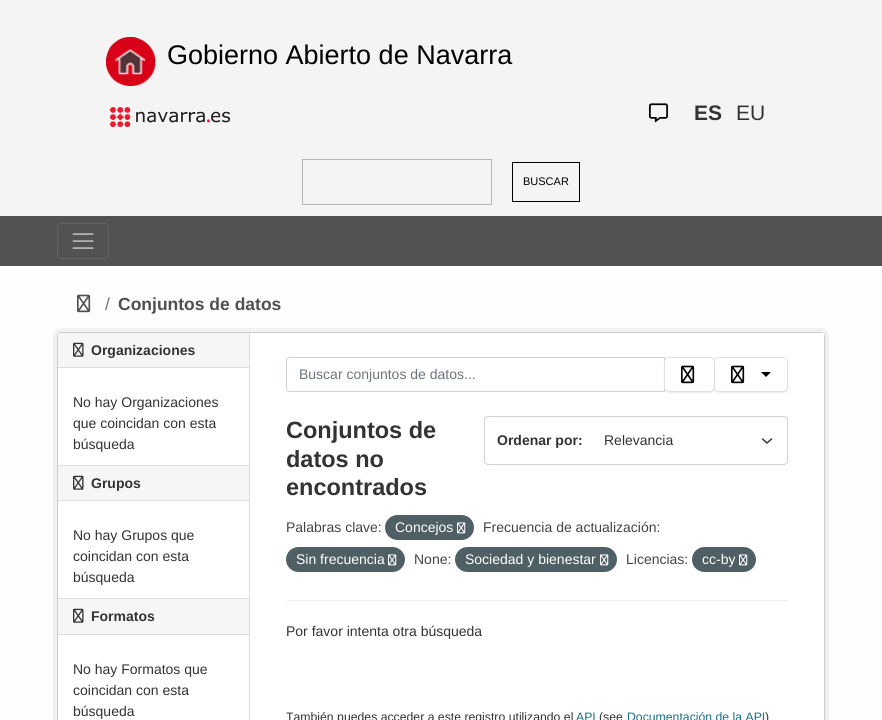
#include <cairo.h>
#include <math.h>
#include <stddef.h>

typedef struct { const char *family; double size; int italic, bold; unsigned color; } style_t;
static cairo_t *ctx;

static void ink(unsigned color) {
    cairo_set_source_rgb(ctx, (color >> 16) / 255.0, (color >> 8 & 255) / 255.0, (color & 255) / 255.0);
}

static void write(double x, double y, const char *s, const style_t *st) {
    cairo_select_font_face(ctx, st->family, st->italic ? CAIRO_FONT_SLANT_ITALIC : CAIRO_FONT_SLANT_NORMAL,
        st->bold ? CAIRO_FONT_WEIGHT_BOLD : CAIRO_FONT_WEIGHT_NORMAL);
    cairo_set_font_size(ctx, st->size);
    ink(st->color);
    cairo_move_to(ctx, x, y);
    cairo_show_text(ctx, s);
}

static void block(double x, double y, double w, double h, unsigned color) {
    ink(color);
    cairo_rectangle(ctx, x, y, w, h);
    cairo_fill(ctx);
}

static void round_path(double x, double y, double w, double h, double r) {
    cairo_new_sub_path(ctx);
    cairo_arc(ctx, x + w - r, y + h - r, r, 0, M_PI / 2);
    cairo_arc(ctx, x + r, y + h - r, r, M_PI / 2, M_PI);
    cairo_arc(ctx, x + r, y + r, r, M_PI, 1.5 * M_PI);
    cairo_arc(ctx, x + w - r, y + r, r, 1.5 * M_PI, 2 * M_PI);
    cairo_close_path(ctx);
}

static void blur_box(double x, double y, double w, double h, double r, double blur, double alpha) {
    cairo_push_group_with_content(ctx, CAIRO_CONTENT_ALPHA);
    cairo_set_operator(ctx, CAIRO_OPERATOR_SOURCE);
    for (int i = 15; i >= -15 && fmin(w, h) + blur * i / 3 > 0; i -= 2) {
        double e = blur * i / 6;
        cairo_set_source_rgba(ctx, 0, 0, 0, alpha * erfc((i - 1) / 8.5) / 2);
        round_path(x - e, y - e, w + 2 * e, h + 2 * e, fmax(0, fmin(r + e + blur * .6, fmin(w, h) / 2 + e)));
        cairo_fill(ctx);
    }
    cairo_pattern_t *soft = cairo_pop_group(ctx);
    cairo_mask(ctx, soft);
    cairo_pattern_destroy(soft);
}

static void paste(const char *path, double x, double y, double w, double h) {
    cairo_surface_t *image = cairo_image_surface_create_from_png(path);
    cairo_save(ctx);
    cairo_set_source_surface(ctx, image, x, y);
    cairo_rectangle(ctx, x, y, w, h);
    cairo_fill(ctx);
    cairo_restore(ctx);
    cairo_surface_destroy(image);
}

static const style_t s1 = {"Liberation Sans", 27, 0, 0, 0x000000};
static const style_t s2 = {"Liberation Sans", 21, 0, 1, 0x333333};
static const style_t s3 = {"Liberation Sans", 21, 0, 0, 0x333333};
static const style_t s4 = {"Liberation Sans", 11, 0, 0, 0x000000};
static const style_t s5 = {"Liberation Sans", 17.5, 0, 0, 0x6c757d};
static const style_t s6 = {"Liberation Sans", 17.5, 0, 1, 0x505050};
static const style_t s7 = {"Liberation Sans", 14, 0, 1, 0x333333};
static const style_t s8 = {"Liberation Sans", 14, 0, 0, 0x333333};
static const style_t s9 = {"Liberation Sans", 14, 0, 0, 0x6c757d};
static const style_t s10 = {"Liberation Sans", 23.5, 0, 1, 0x333333};
static const style_t s11 = {"Liberation Sans", 14, 0, 0, 0x444444};
static const style_t s12 = {"Liberation Sans", 14, 0, 0, 0xffffff};
static const style_t s13 = {"Liberation Sans", 12.25, 0, 0, 0x333333};
static const style_t s14 = {"Liberation Sans", 12.25, 0, 0, 0x206b82};

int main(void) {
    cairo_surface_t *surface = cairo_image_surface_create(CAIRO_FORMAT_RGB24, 882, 720);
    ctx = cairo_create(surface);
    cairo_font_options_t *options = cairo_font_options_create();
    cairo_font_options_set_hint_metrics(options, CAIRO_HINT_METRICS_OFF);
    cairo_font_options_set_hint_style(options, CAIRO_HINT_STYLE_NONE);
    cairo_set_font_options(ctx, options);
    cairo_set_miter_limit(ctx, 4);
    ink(0xf4f4f4);
    cairo_paint(ctx);
    paste("pic1.png", 106, 37, 50, 49);
    write(167, 64, "Gobierno Abierto de Navarra", &s1);
    paste("pic2.png", 110, 107, 120, 20);
    paste("pic3.png", 648, 103, 20, 20);
    write(694, 120, "ES", &s2);
    write(736, 120, "EU", &s3);
    cairo_rectangle(ctx, 302.5, 159.5, 189, 45);
    ink(0xb6b6b6);
    cairo_set_line_width(ctx, 1);
    cairo_stroke(ctx);
    cairo_rectangle(ctx, 512.5, 162.5, 67, 39);
    ink(0x000000);
    cairo_stroke(ctx);
    write(523, 185, "BUSCAR", &s4);
    block(0, 216, 882, 50, 0x525252);
    round_path(57.5, 223.5, 51, 35, 3.5);
    ink(0x636363);
    cairo_stroke(ctx);
    paste("pic4.png", 72, 233, 22, 16);
    block(0, 266, 882, 454, 0xfefefe);
    paste("pic5.png", 77, 294, 14, 19);
    write(105, 310, "/", &s5);
    write(118, 310, "Conjuntos de datos", &s6);
    round_path(55, 330, 772, 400, 6);
    ink(0xf1f1f1);
    cairo_set_line_width(ctx, 4);
    cairo_stroke(ctx);
    ink(0xffffff);
    round_path(57.5, 332.5, 767, 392, 3.5);
    cairo_fill_preserve(ctx);
    ink(0xcccccc);
    cairo_set_line_width(ctx, 1);
    cairo_stroke(ctx);
    ink(0xf6f6f6);
    cairo_new_path(ctx);
    cairo_move_to(ctx, 61, 333);
    cairo_line_to(ctx, 249, 333);
    cairo_line_to(ctx, 249, 368);
    cairo_line_to(ctx, 58, 368);
    cairo_line_to(ctx, 58, 336);
    cairo_curve_to(ctx, 58, 334.5, 59.5, 333, 61, 333);
    cairo_close_path(ctx);
    cairo_fill(ctx);
    block(58, 367, 191, 1, 0xdddddd);
    paste("pic6.png", 73, 342, 11, 15);
    write(91, 355, "Organizaciones", &s7);
    write(73, 407, "No hay Organizaciones", &s8);
    write(73, 428, "que coincidan con esta", &s8);
    write(73, 449, "búsqueda", &s8);
    block(58, 466, 191, 34, 0xf6f6f6);
    block(58, 465, 191, 1, 0xdddddd);
    block(58, 500, 191, 1, 0xdddddd);
    paste("pic6.png", 73, 475, 11, 15);
    write(91, 488, "Grupos", &s7);
    write(73, 540, "No hay Grupos que", &s8);
    write(73, 561, "coincidan con esta", &s8);
    write(73, 582, "búsqueda", &s8);
    block(58, 599, 191, 35, 0xf6f6f6);
    block(58, 598, 191, 1, 0xdddddd);
    block(58, 634, 191, 1, 0xdddddd);
    paste("pic6.png", 73, 608, 11, 15);
    write(91, 621, "Formatos", &s7);
    write(73, 674, "No hay Formatos que", &s8);
    write(73, 695, "coincidan con esta", &s8);
    write(73, 716, "búsqueda", &s8);
    block(249, 333, 1, 387, 0xdddddd);
    cairo_set_source_rgba(ctx, 1, 1, 1, 0.95);
    cairo_rectangle(ctx, 821, 333, 3, 3);
    cairo_fill(ctx);
    cairo_new_path(ctx);
    cairo_move_to(ctx, 286, 600.5);
    cairo_line_to(ctx, 788, 600.5);
    ink(0xdddddd);
    cairo_set_dash(ctx, (double[]){1, 1}, 2, 0);
    cairo_stroke(ctx);
    cairo_new_path(ctx);
    cairo_move_to(ctx, 290, 357.5);
    cairo_line_to(ctx, 664.5, 357.5);
    cairo_line_to(ctx, 664.5, 391.5);
    cairo_line_to(ctx, 290, 391.5);
    cairo_curve_to(ctx, 288, 391.5, 286.5, 390, 286.5, 388);
    cairo_line_to(ctx, 286.5, 361);
    cairo_curve_to(ctx, 286.5, 359, 288, 357.5, 290, 357.5);
    cairo_close_path(ctx);
    ink(0xced4da);
    cairo_set_dash(ctx, NULL, 0, 0);
    cairo_stroke(ctx);
    write(299, 379, "Buscar conjuntos de datos...", &s9);
    ink(0x000000);
    blur_box(664, 358, 51, 35, 5, 0.5, 0.07);
    ink(0xffffff);
    round_path(664.5, 357.5, 50, 34, 4.5);
    cairo_fill_preserve(ctx);
    ink(0xdee2e6);
    cairo_stroke(ctx);
    paste("pic7.png", 681, 365, 14, 19);
    ink(0x000000);
    blur_box(714, 358, 74, 35, 5, 0.5, 0.07);
    ink(0xffffff);
    round_path(714.5, 357.5, 73, 34, 4.5);
    cairo_fill_preserve(ctx);
    ink(0xdee2e6);
    cairo_stroke(ctx);
    paste("pic7.png", 731, 365, 14, 19);
    ink(0x000000);
    cairo_new_path(ctx);
    cairo_move_to(ctx, 761, 372);
    cairo_line_to(ctx, 771, 372);
    cairo_line_to(ctx, 766, 377);
    cairo_close_path(ctx);
    cairo_fill(ctx);
    write(286, 438, "Conjuntos de", &s10);
    write(286, 467, "datos no", &s10);
    write(286, 495, "encontrados", &s10);
    cairo_new_path(ctx);
    cairo_move_to(ctx, 762.5, 439);
    cairo_line_to(ctx, 767, 443);
    cairo_line_to(ctx, 771.5, 439);
    ink(0x343a40);
    cairo_set_line_width(ctx, 1.5);
    cairo_set_line_cap(ctx, CAIRO_LINE_CAP_ROUND);
    cairo_set_line_join(ctx, CAIRO_LINE_JOIN_ROUND);
    cairo_stroke(ctx);
    round_path(484.5, 416.5, 303, 48, 3.5);
    ink(0xced4da);
    cairo_set_line_width(ctx, 1);
    cairo_set_line_cap(ctx, CAIRO_LINE_CAP_BUTT);
    cairo_set_line_join(ctx, CAIRO_LINE_JOIN_MITER);
    cairo_stroke(ctx);
    write(497, 445, "Ordenar por:", &s7);
    write(604, 445, "Relevancia", &s8);
    write(286, 532, "Palabras clave:", &s11);
    ink(0x4e5f65);
    round_path(385, 515, 89, 25, 12.5);
    cairo_fill(ctx);
    write(395, 532, "Concejos", &s12);
    paste("pic8.png", 457, 522, 9, 12);
    write(483, 532, "Frecuencia de actualización:", &s11);
    ink(0x4e5f65);
    round_path(286, 547, 119, 25, 12.5);
    cairo_fill(ctx);
    write(296, 564, "Sin frecuencia", &s12);
    paste("pic8.png", 388, 554, 9, 12);
    write(414, 564, "None:", &s11);
    ink(0x4e5f65);
    round_path(455, 547, 162, 25, 12.5);
    cairo_fill(ctx);
    write(465, 564, "Sociedad y bienestar", &s12);
    paste("pic8.png", 600, 554, 9, 12);
    write(626, 564, "Licencias:", &s11);
    ink(0x4e5f65);
    round_path(692, 547, 64, 25, 12.5);
    cairo_fill(ctx);
    write(702, 564, "cc-by", &s12);
    paste("pic8.png", 739, 554, 9, 12);
    write(286, 636, "Por favor intenta otra búsqueda", &s8);
    write(286, 721, "También puedes acceder a este registro utilizando el", &s13);
    write(576, 721, "API", &s14);
    write(599, 721, "(see", &s13);
    write(627, 721, "Documentación de la API", &s14);
    write(765, 721, ")", &s13);
    cairo_surface_write_to_png(surface, "screenshot.png");
    cairo_font_options_destroy(options);
    cairo_destroy(ctx);
    cairo_surface_destroy(surface);
    return 0;
}
